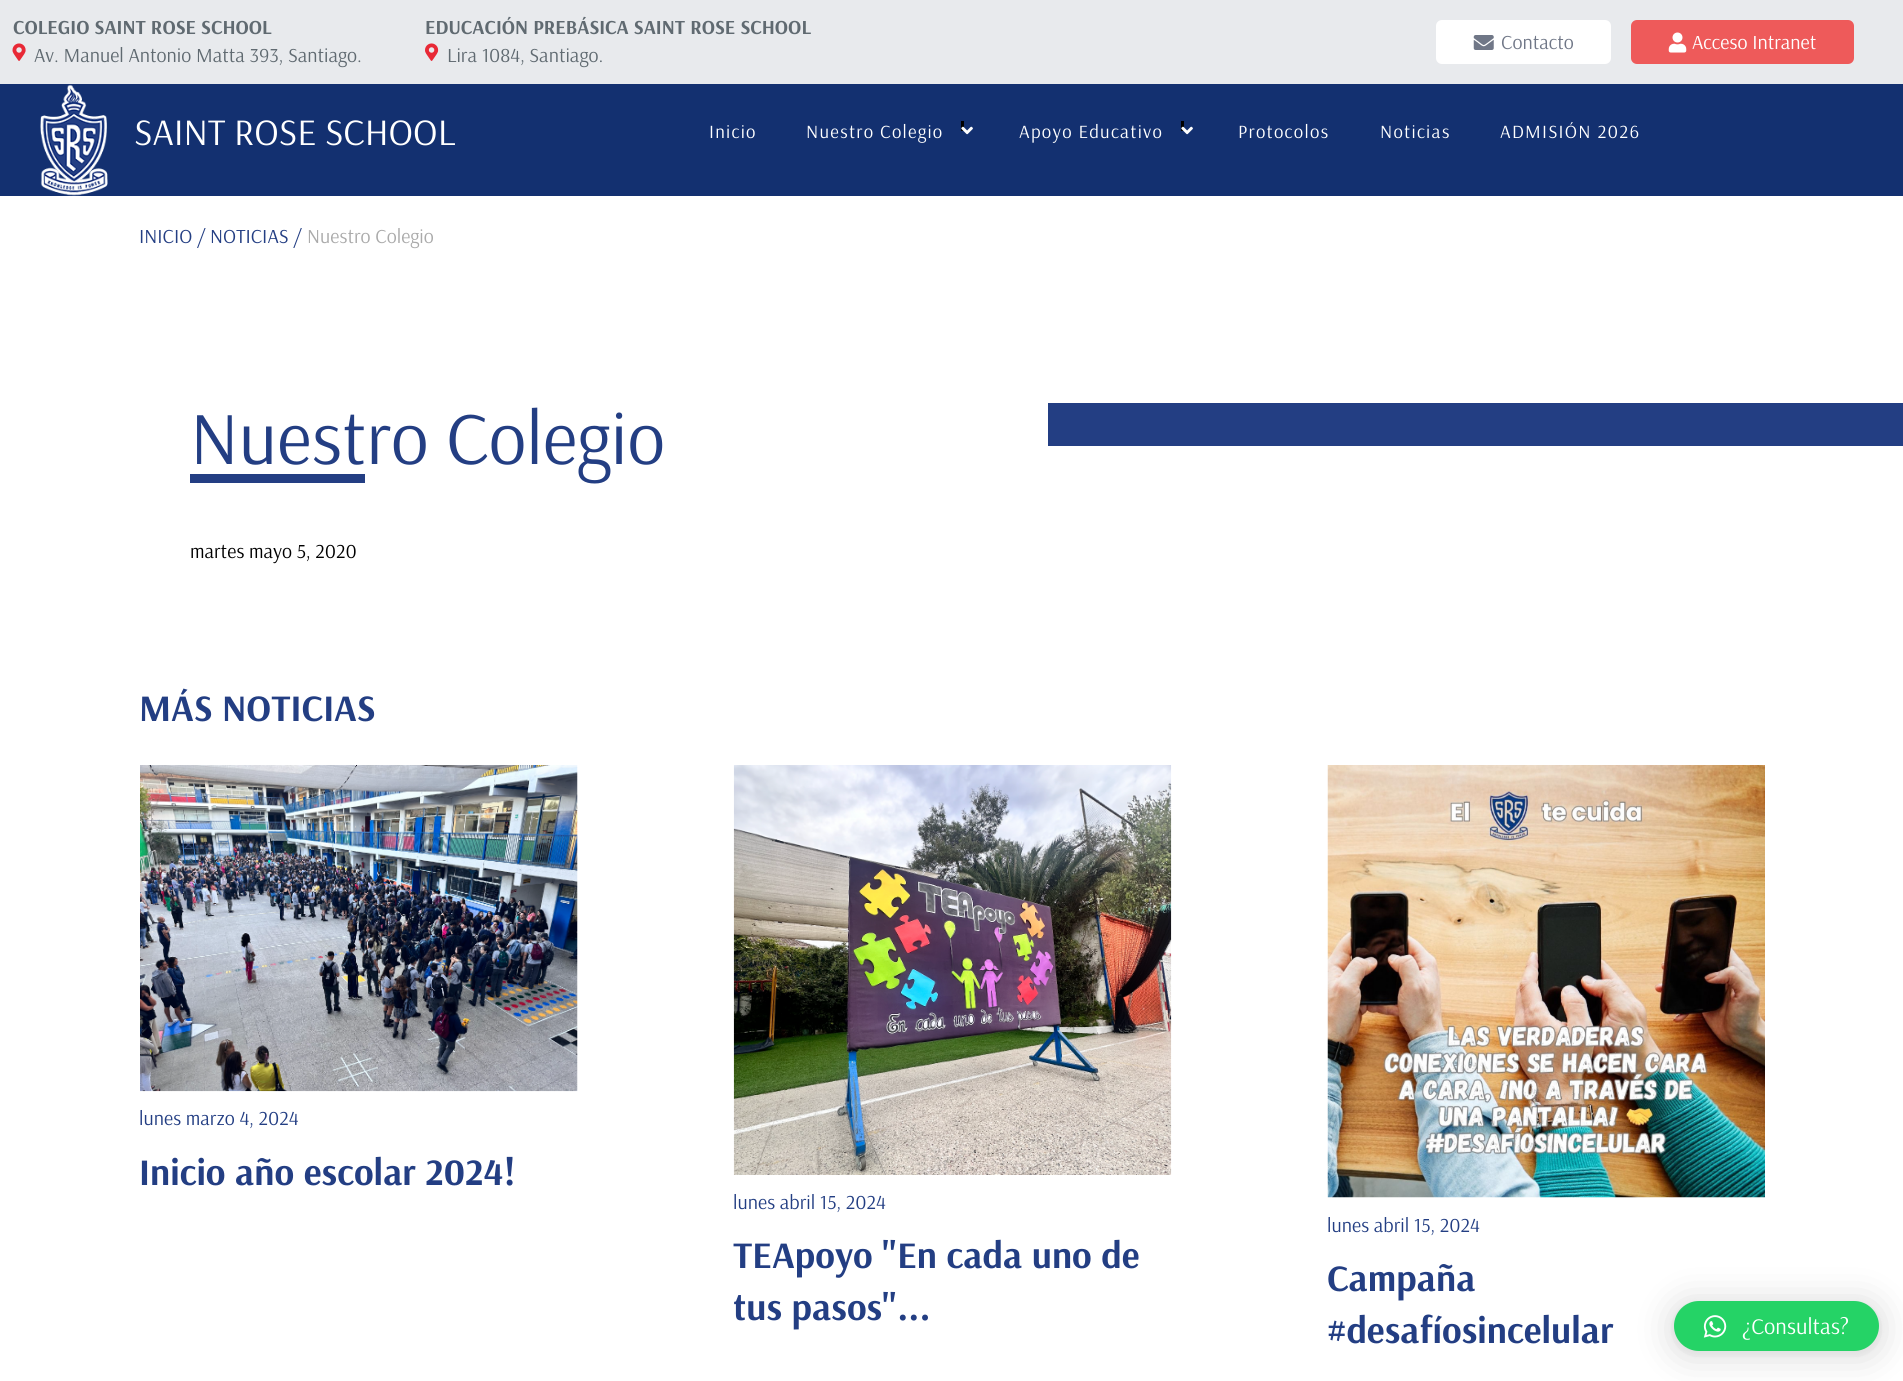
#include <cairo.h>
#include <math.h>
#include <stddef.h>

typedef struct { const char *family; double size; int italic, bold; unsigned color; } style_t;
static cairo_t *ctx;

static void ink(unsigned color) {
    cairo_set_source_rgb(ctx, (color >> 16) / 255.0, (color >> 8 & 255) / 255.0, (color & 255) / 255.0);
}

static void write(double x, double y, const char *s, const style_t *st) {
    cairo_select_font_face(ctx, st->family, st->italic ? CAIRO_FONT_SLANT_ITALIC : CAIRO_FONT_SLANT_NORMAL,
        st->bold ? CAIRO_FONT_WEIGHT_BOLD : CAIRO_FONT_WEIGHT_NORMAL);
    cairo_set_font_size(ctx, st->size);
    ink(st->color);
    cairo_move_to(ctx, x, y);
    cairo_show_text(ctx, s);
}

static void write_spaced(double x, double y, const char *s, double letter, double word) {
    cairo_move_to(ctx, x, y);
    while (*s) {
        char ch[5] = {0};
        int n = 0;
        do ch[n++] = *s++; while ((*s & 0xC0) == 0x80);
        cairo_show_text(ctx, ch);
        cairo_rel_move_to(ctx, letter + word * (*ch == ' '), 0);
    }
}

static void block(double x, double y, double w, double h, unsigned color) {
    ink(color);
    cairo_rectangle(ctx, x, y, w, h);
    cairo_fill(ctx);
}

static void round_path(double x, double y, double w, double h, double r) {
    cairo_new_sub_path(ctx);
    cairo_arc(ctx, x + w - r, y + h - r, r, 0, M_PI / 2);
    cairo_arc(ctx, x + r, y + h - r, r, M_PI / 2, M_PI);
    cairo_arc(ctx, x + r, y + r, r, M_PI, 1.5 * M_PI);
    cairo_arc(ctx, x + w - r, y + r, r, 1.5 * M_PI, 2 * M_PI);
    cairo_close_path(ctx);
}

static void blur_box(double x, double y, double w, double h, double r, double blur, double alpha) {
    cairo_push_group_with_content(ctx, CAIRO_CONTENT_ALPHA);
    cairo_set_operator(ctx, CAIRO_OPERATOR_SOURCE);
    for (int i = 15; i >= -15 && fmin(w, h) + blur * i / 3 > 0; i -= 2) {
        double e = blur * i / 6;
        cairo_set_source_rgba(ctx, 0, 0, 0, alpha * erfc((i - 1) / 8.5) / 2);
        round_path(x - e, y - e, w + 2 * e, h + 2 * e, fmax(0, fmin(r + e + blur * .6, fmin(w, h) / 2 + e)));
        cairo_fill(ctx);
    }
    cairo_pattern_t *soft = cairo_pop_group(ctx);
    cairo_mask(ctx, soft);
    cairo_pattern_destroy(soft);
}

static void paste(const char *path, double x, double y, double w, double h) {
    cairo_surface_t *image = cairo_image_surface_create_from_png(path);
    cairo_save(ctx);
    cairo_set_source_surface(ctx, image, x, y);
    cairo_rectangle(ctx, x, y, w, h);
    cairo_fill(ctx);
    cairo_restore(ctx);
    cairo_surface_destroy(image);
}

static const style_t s1 = {"Arsenal", 20, 0, 1, 0x606a71};
static const style_t s2 = {"Arsenal", 20, 0, 0, 0x606a71};
static const style_t s3 = {"Arsenal", 20, 0, 0, 0x707787};
static const style_t s4 = {"Arsenal", 20, 0, 0, 0xffffff};
static const style_t s5 = {"Arsenal", 37.5, 0, 0, 0xffffff};
static const style_t s6 = {"Arsenal", 20, 0, 0, 0x233e83};
static const style_t s7 = {"Arsenal", 20, 0, 0, 0xaaaaaa};
static const style_t s8 = {"Arsenal", 75, 0, 0, 0x233e83};
static const style_t s9 = {"Arsenal", 20, 0, 0, 0x000000};
static const style_t s10 = {"Arsenal", 37.5, 0, 1, 0x233e83};
static const style_t s11 = {"Arsenal", 22.5, 0, 0, 0xffffff};

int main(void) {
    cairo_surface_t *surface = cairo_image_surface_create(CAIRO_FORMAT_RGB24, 1903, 1381);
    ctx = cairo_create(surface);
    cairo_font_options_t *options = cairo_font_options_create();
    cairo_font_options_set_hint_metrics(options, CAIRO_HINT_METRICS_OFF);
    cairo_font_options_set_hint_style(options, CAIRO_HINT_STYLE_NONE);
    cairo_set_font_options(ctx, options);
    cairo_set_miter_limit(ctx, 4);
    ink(0xffffff);
    cairo_paint(ctx);
    block(0, 0, 1903, 84, 0xe8eaed);
    write(13, 34, "COLEGIO SAINT ROSE SCHOOL", &s1);
    paste("pic1.png", 12, 43, 14, 18);
    write(34, 62, "Av. Manuel Antonio Matta 393, Santiago.", &s2);
    write(425, 34, "EDUCACIÓN PREBÁSICA SAINT ROSE SCHOOL", &s1);
    paste("pic2.png", 425, 43, 14, 18);
    write(447, 62, "Lira 1084, Santiago.", &s2);
    ink(0xffffff);
    round_path(1436, 20, 175, 44, 6);
    cairo_fill(ctx);
    paste("pic3.png", 1473, 35, 21, 15);
    write(1501, 49, "Contacto", &s3);
    ink(0xee5a5a);
    round_path(1631, 20, 223, 44, 6);
    cairo_fill(ctx);
    paste("pic4.png", 1668, 32, 19, 21);
    write(1692, 49, "Acceso Intranet", &s4);
    block(0, 84, 1903, 112, 0x133070);
    paste("pic5.png", 40, 84, 68, 112);
    write(134, 145, "SAINT ROSE SCHOOL", &s5);
    cairo_set_font_size(ctx, 18.75);
    write_spaced(709, 138, "Inicio", 1.25, 0);
    write_spaced(806, 138, "Nuestro Colegio", 1.25, 0);
    block(961, 121, 3, 10, 0x000000);
    paste("pic6.png", 961, 126, 12, 9);
    ink(0xffffff);
    write_spaced(1019, 138, "Apoyo Educativo", 1.25, 0);
    block(1181, 121, 3, 10, 0x000000);
    paste("pic6.png", 1181, 126, 12, 9);
    ink(0xffffff);
    write_spaced(1238, 138, "Protocolos", 1.25, 0);
    write_spaced(1380, 138, "Noticias", 1.25, 0);
    write_spaced(1500, 138, "ADMISIÓN 2026", 1.25, 0);
    write(139, 243, "INICIO / NOTICIAS /", &s6);
    write(307, 243, "Nuestro Colegio", &s7);
    block(190, 474, 175, 9, 0x233e83);
    write(190, 464, "Nuestro Colegio", &s8);
    write(190, 558, "martes mayo 5, 2020", &s9);
    block(1048, 403, 855, 43, 0x233e83);
    write(139, 721, "MÁS NOTICIAS", &s10);
    paste("pic7.png", 140, 765, 438, 327);
    write(139, 1125, "lunes marzo 4, 2024", &s6);
    write(139, 1185, "Inicio año escolar 2024!", &s10);
    paste("pic8.png", 733, 765, 439, 410);
    write(733, 1209, "lunes abril 15, 2024", &s6);
    write(733, 1268, "TEApoyo \"En cada uno de", &s10);
    write(733, 1320, "tus pasos\"...", &s10);
    paste("pic9.png", 1327, 765, 438, 433);
    write(1327, 1232, "lunes abril 15, 2024", &s6);
    write(1327, 1291, "Campaña", &s10);
    write(1327, 1343, "#desafíosincelular", &s10);
    ink(0x000000);
    blur_box(1674, 1304, 205, 50, 25, 20, 0.16);
    blur_box(1674, 1303, 205, 50, 25, 4, 0.06);
    ink(0x25d366);
    round_path(1674, 1301, 205, 50, 25);
    cairo_fill(ctx);
    paste("pic10.png", 1703, 1315, 24, 23);
    write(1742, 1334, "¿Consultas?", &s11);
    cairo_surface_write_to_png(surface, "screenshot.png");
    cairo_font_options_destroy(options);
    cairo_destroy(ctx);
    cairo_surface_destroy(surface);
    return 0;
}
